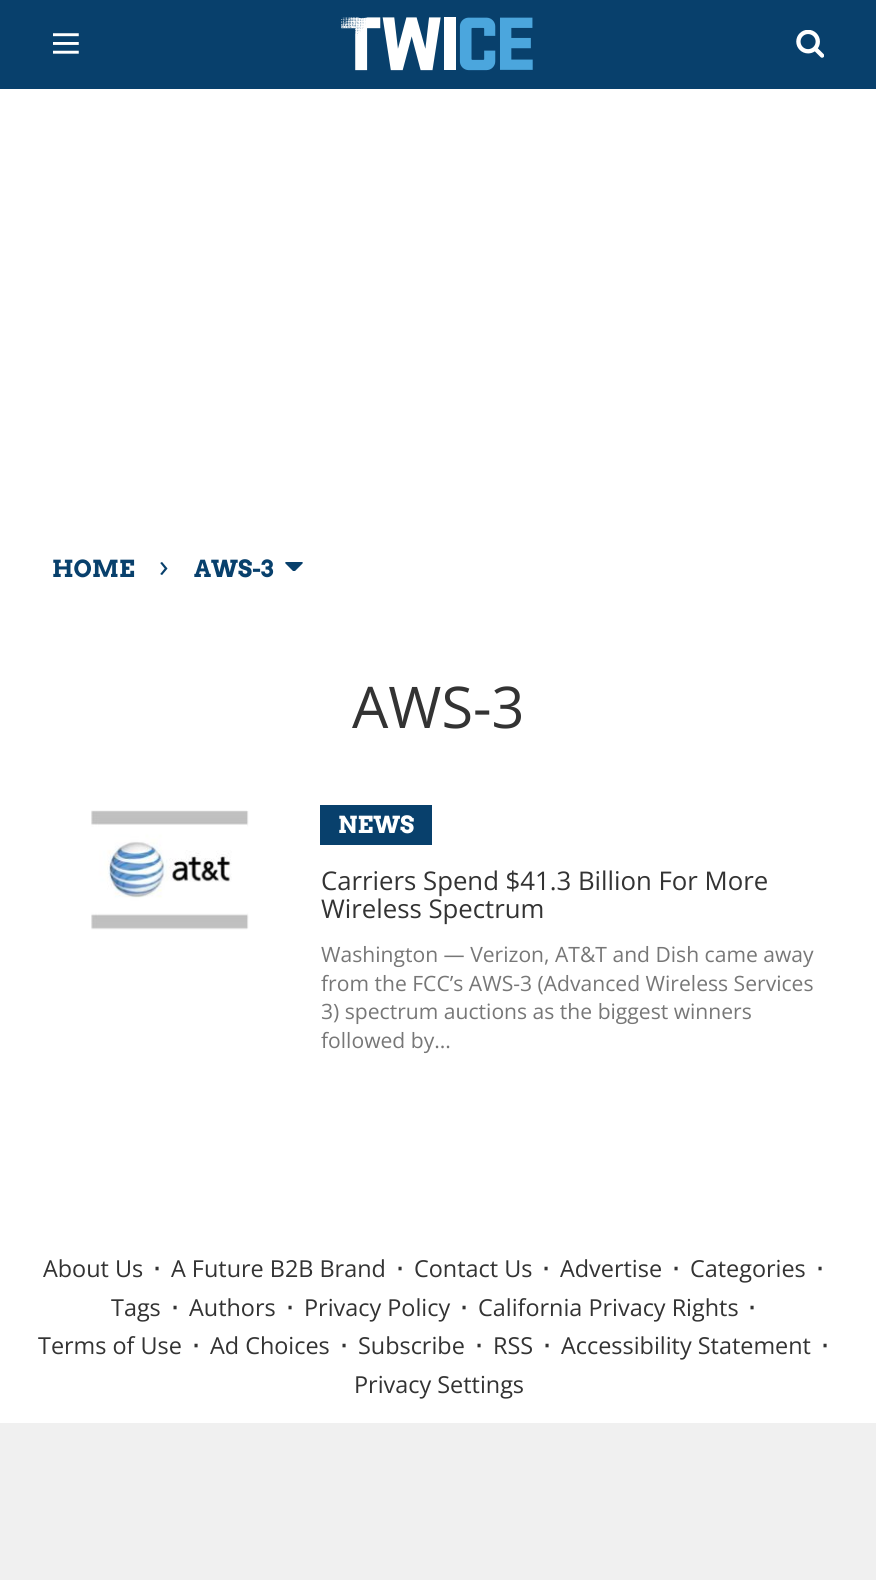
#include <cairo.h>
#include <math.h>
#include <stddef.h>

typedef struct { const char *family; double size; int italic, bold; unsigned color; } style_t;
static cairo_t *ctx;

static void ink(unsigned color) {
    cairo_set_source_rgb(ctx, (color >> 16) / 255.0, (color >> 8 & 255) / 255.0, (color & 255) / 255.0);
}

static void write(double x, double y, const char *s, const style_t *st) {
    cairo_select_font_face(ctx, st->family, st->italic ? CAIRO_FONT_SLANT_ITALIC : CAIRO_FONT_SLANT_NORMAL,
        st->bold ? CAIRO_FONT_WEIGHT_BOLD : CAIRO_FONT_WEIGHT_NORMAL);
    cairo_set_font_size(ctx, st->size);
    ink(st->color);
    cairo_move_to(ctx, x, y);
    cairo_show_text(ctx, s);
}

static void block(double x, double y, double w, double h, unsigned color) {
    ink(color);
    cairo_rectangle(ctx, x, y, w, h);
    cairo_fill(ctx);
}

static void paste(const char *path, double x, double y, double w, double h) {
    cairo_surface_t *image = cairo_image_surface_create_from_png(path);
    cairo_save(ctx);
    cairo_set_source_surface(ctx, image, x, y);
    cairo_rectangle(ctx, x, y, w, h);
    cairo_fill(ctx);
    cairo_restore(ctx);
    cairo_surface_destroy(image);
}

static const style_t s1 = {"Arvo", 23.4, 0, 1, 0x08406c};
static const style_t s2 = {"Open Sans", 32, 0, 0, 0x08406c};
static const style_t s3 = {"Open Sans", 57.5, 0, 0, 0x333333};
static const style_t s4 = {"Arvo", 23.4, 0, 1, 0xffffff};
static const style_t s5 = {"Open Sans", 25.75, 0, 0, 0x333333};
static const style_t s6 = {"Open Sans", 21.1, 0, 0, 0x777777};
static const style_t s7 = {"Open Sans", 23.4, 0, 0, 0x333333};
static const style_t s8 = {"DejaVu Sans", 23.4, 0, 1, 0x333333};

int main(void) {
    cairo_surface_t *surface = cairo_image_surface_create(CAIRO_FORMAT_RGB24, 876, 1580);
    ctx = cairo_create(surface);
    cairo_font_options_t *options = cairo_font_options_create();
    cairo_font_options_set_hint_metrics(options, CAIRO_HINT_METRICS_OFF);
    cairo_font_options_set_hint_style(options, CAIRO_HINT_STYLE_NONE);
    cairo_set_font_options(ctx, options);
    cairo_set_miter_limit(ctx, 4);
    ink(0xffffff);
    cairo_paint(ctx);
    block(0, 0, 876, 89, 0x08406c);
    paste("pic1.png", 53, 33, 26, 21);
    paste("pic2.png", 341, 17, 192, 54);
    paste("pic3.png", 796, 30, 28, 28);
    write(52, 577, "HOME", &s1);
    write(159, 577, "›", &s2);
    write(194, 577, "AWS-3", &s1);
    paste("pic4.png", 285, 562, 18, 9);
    write(352, 728, "AWS-3", &s3);
    paste("pic5.png", 91, 810, 158, 120);
    block(320, 805, 112, 40, 0x08406c);
    write(338, 833, "NEWS", &s4);
    write(321, 890, "Carriers Spend $41.3 Billion For More", &s5);
    write(321, 918, "Wireless Spectrum", &s5);
    write(321, 962, "Washington — Verizon, AT&T and Dish came away", &s6);
    write(321, 991, "from the FCC’s AWS-3 (Advanced Wireless Services", &s6);
    write(321, 1019, "3) spectrum auctions as the biggest winners", &s6);
    write(321, 1048, "followed by...", &s6);
    write(43, 1277, "About Us", &s7);
    write(153, 1277, "⋅", &s8);
    write(171, 1277, "A Future B2B Brand", &s7);
    write(396, 1277, "⋅", &s8);
    write(414, 1277, "Contact Us", &s7);
    write(542, 1277, "⋅", &s8);
    write(560, 1277, "Advertise", &s7);
    write(672, 1277, "⋅", &s8);
    write(690, 1277, "Categories", &s7);
    write(816, 1277, "⋅", &s8);
    write(111, 1316, "Tags", &s7);
    write(171, 1316, "⋅", &s8);
    write(189, 1316, "Authors", &s7);
    write(286, 1316, "⋅", &s8);
    write(304, 1316, "Privacy Policy", &s7);
    write(460, 1316, "⋅", &s8);
    write(478, 1316, "California Privacy Rights", &s7);
    write(748, 1316, "⋅", &s8);
    write(38, 1354, "Terms of Use", &s7);
    write(192, 1354, "⋅", &s8);
    write(210, 1354, "Ad Choices", &s7);
    write(340, 1354, "⋅", &s8);
    write(358, 1354, "Subscribe", &s7);
    write(475, 1354, "⋅", &s8);
    write(493, 1354, "RSS", &s7);
    write(543, 1354, "⋅", &s8);
    write(561, 1354, "Accessibility Statement", &s7);
    write(821, 1354, "⋅", &s8);
    write(354, 1393, "Privacy Settings", &s7);
    block(0, 1423, 876, 157, 0xf0f0f0);
    cairo_surface_write_to_png(surface, "screenshot.png");
    cairo_font_options_destroy(options);
    cairo_destroy(ctx);
    cairo_surface_destroy(surface);
    return 0;
}
